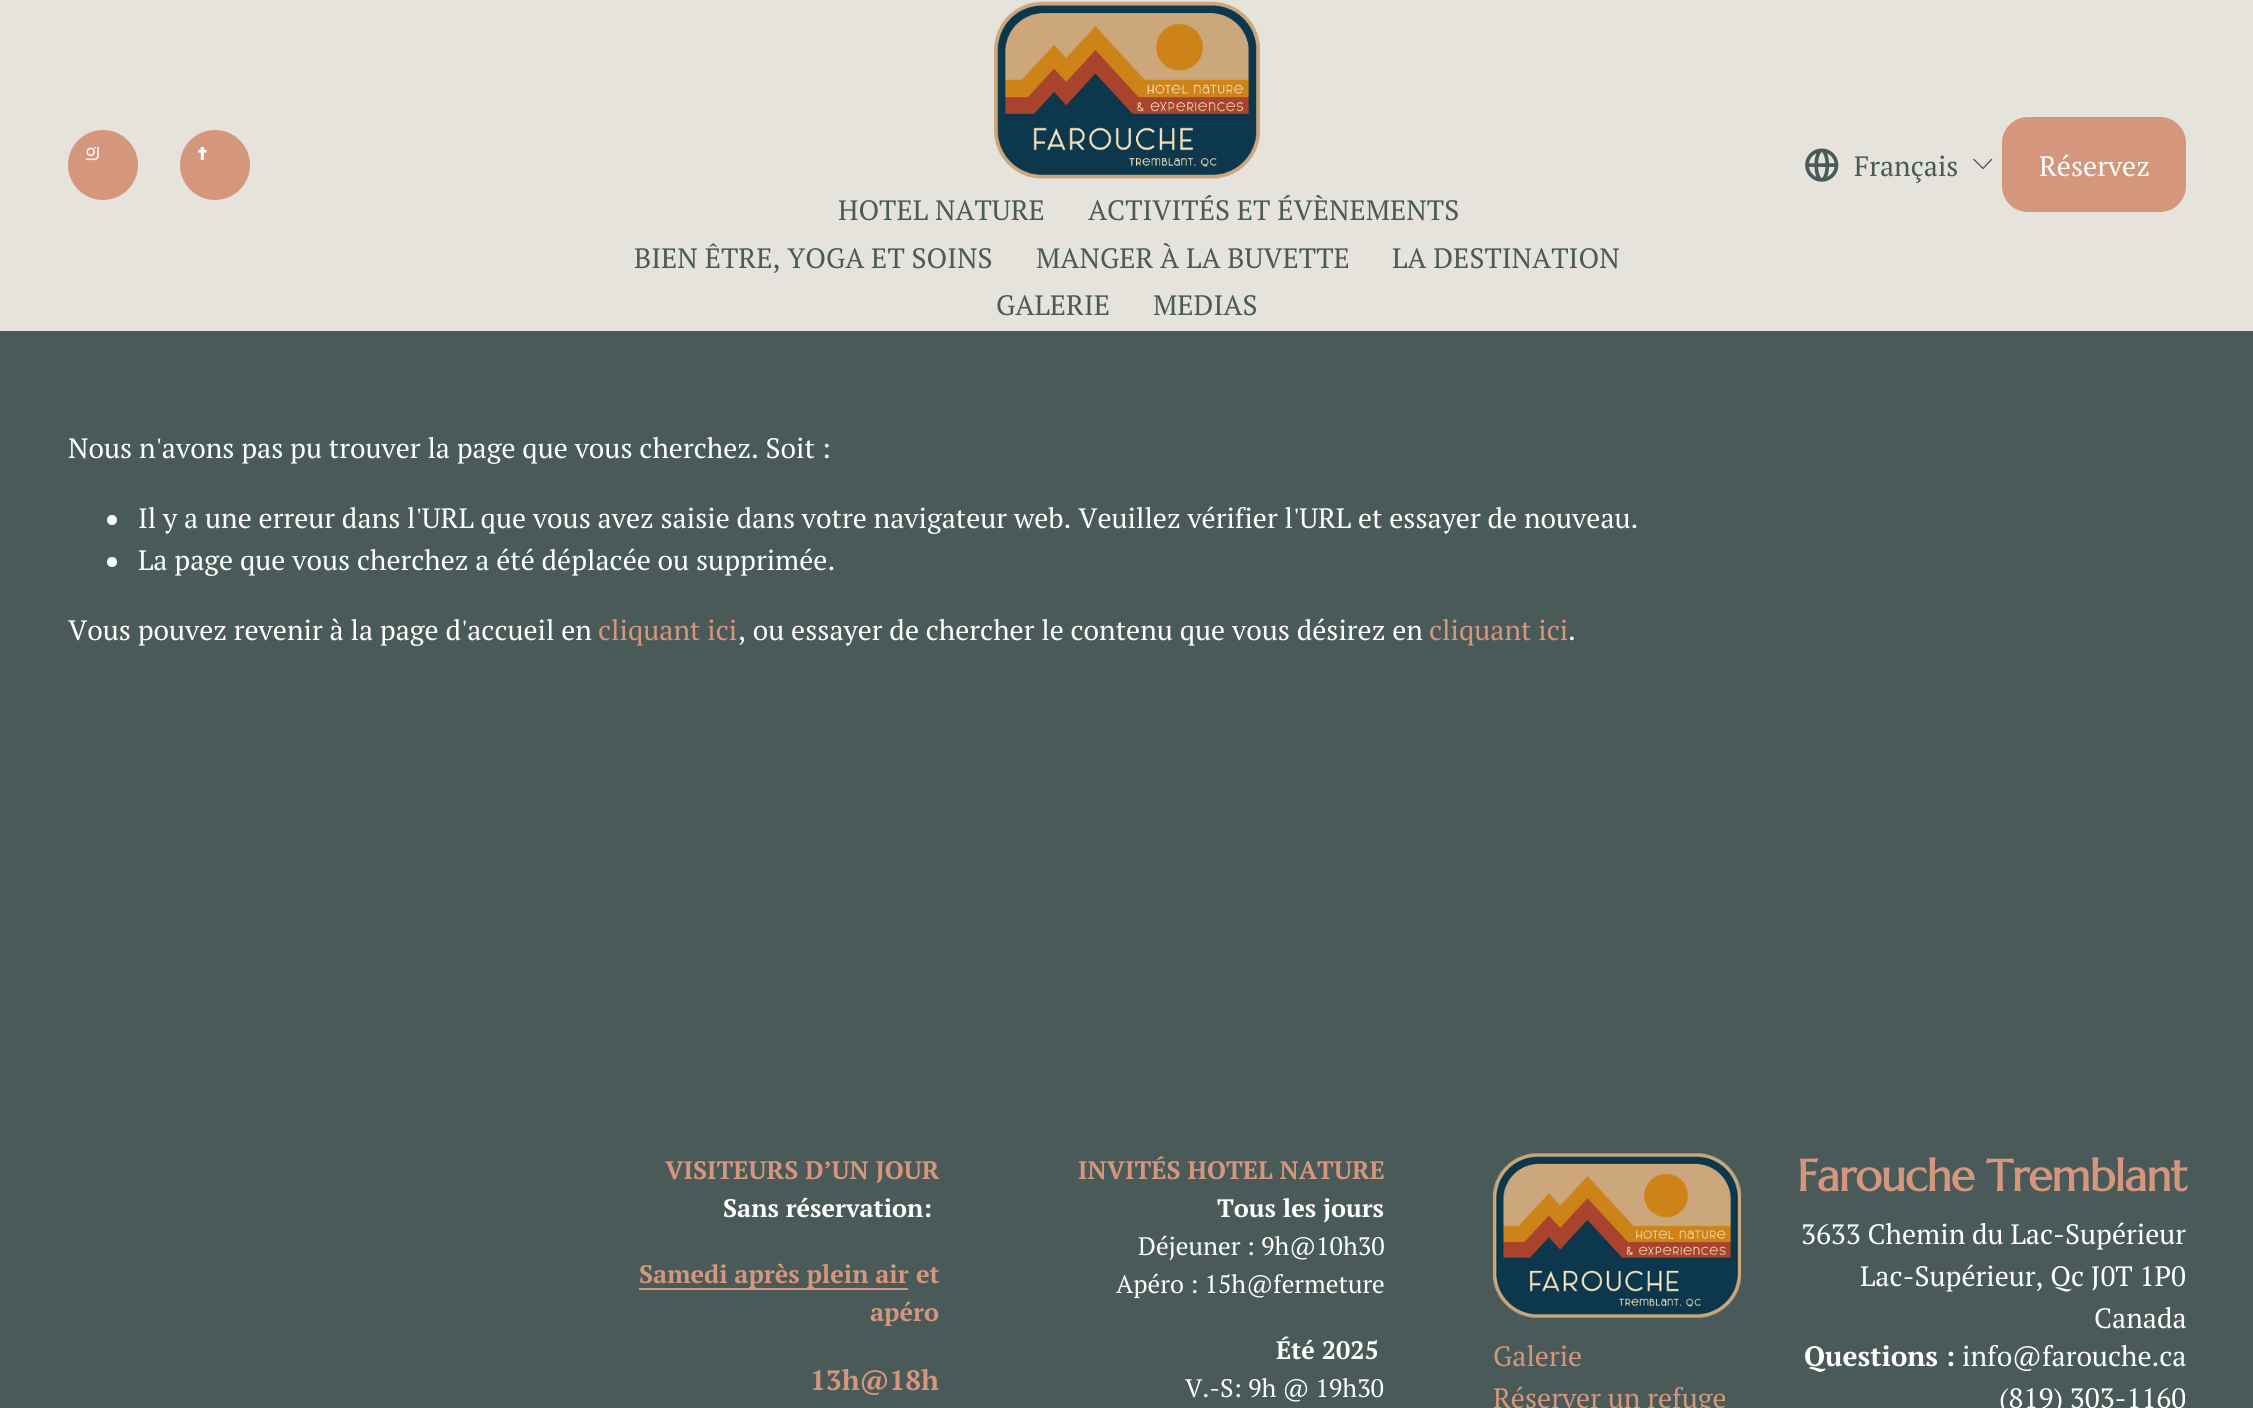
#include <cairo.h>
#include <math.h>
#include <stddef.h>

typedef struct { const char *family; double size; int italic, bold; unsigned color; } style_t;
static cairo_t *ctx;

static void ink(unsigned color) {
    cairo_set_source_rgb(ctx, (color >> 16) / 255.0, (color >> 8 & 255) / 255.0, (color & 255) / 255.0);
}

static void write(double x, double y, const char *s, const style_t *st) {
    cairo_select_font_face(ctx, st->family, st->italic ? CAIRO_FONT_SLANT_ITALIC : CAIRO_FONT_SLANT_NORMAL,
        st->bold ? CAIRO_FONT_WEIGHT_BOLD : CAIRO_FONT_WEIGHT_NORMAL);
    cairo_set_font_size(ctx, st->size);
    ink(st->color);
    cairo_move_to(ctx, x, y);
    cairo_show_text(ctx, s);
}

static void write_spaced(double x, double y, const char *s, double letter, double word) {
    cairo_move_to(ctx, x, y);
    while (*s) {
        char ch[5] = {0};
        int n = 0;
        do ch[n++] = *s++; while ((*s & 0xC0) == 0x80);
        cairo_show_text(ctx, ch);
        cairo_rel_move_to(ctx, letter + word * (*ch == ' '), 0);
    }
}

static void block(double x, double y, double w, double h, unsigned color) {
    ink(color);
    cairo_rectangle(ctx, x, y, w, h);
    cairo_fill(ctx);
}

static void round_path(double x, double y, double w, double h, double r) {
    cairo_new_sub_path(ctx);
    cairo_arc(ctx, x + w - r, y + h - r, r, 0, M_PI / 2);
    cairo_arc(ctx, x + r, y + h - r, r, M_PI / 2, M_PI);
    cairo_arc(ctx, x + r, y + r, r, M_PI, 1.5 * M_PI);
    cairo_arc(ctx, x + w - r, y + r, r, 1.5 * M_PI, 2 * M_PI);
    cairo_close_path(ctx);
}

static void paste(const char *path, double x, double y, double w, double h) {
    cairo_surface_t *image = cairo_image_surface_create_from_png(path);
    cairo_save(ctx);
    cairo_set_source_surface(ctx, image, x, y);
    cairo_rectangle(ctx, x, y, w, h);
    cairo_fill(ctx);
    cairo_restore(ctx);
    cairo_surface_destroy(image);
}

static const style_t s1 = {"PT Serif", 28, 0, 0, 0x495a58};
static const style_t s2 = {"PT Serif", 28, 0, 0, 0xffffff};
static const style_t s3 = {"PT Serif", 28, 0, 0, 0xd4967d};
static const style_t s4 = {"PT Serif", 25.25, 0, 1, 0xd4967d};
static const style_t s5 = {"PT Serif", 25.25, 0, 1, 0xffffff};
static const style_t s6 = {"PT Serif", 28, 0, 1, 0xd4967d};
static const style_t s7 = {"PT Serif", 25.25, 0, 0, 0xffffff};
static const style_t s8 = {"PT Serif", 28, 0, 1, 0xffffff};

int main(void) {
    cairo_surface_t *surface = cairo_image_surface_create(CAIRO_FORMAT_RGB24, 2253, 1408);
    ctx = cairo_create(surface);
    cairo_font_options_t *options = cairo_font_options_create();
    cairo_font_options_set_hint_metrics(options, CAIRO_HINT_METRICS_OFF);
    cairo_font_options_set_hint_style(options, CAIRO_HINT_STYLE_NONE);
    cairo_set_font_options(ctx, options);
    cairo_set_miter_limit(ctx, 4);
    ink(0x495a58);
    cairo_paint(ctx);
    block(0, 0, 2253, 331, 0xe5e3dc);
    ink(0xd4967d);
    cairo_arc(ctx, 103, 165, 35, 0, 2 * M_PI);
    cairo_fill(ctx);
    paste("pic1.png", 86, 147, 13, 14);
    cairo_arc(ctx, 215, 165, 35, 0, 2 * M_PI);
    cairo_fill(ctx);
    paste("pic2.png", 198, 147, 9, 14);
    paste("pic3.png", 1805, 148, 34, 34);
    write(1854, 176, "Français", &s1);
    cairo_new_path(ctx);
    cairo_move_to(ctx, 1991.5, 159.5);
    cairo_line_to(ctx, 1983, 168.5);
    cairo_line_to(ctx, 1974, 159.5);
    cairo_set_line_width(ctx, 1.3);
    cairo_set_line_cap(ctx, CAIRO_LINE_CAP_SQUARE);
    cairo_stroke(ctx);
    ink(0xd4967d);
    round_path(2002, 117, 184, 95, 26);
    cairo_fill(ctx);
    write(2039, 176, "Réservez", &s2);
    paste("pic4.png", 994, 1, 266, 178);
    write(838, 220, "HOTEL NATURE", &s1);
    write(1088, 220, "ACTIVITÉS ET ÉVÈNEMENTS", &s1);
    write(634, 268, "BIEN ÊTRE, YOGA ET SOINS", &s1);
    write(1036, 268, "MANGER À LA BUVETTE", &s1);
    write(1392, 268, "LA DESTINATION", &s1);
    write(996, 315, "GALERIE", &s1);
    write(1153, 315, "MEDIAS", &s1);
    write(68, 458, "Nous n'avons pas pu trouver la page que vous cherchez. Soit :", &s2);
    cairo_new_path(ctx);
    cairo_arc(ctx, 112, 520, 5, 0, 2 * M_PI);
    cairo_fill(ctx);
    write(138, 528, "Il y a une erreur dans l'URL que vous avez saisie dans votre navigateur web. Veuillez vérifier l'URL et essayer de nouveau.", &s2);
    cairo_new_path(ctx);
    cairo_arc(ctx, 112, 562, 5, 0, 2 * M_PI);
    cairo_fill(ctx);
    write(138, 570, "La page que vous cherchez a été déplacée ou supprimée.", &s2);
    write(68, 640, "Vous pouvez revenir à la page d'accueil en", &s2);
    write(598, 640, "cliquant ici", &s3);
    write(738, 640, ", ou essayer de chercher le contenu que vous désirez en", &s2);
    write(1429, 640, "cliquant ici", &s3);
    write(1568, 640, ".", &s2);
    write(665, 1179, "VISITEURS D’UN JOUR", &s4);
    write(723, 1217, "Sans réservation:", &s5);
    block(639, 1288, 269, 2, 0xd4967d);
    write(639, 1283, "Samedi après plein air", &s4);
    write(916, 1283, "et", &s4);
    write(870, 1321, "apéro", &s4);
    write(810, 1390, "13h@18h", &s6);
    write(1078, 1179, "INVITÉS HOTEL NATURE", &s4);
    write(1217, 1217, "Tous les jours", &s5);
    write(1138, 1255, "Déjeuner : 9h@10h30", &s7);
    write(1116, 1293, "Apéro : 15h@fermeture", &s7);
    write(1276, 1359, "Été 2025", &s5);
    write(1185, 1397, "V.-S: 9h @ 19h30", &s7);
    paste("pic5.png", 1492, 1153, 250, 165);
    cairo_select_font_face(ctx, "Marcellus", CAIRO_FONT_SLANT_NORMAL, CAIRO_FONT_WEIGHT_BOLD);
    cairo_set_font_size(ctx, 44.25);
    ink(0xd4967d);
    write_spaced(1797, 1191, "Farouche Tremblant", -0.9, 0);
    write(1801, 1244, "3633 Chemin du Lac-Supérieur", &s2);
    write(1860, 1286, "Lac-Supérieur, Qc J0T 1P0", &s2);
    write(2094, 1328, "Canada", &s2);
    write(1493, 1366, "Galerie", &s3);
    write(1493, 1408, "Réserver un refuge", &s3);
    write(1804, 1366, "Questions :", &s8);
    write(1962, 1366, "info@farouche.ca", &s2);
    write(1999, 1408, "(819) 303-1160", &s2);
    cairo_surface_write_to_png(surface, "screenshot.png");
    cairo_font_options_destroy(options);
    cairo_destroy(ctx);
    cairo_surface_destroy(surface);
    return 0;
}
